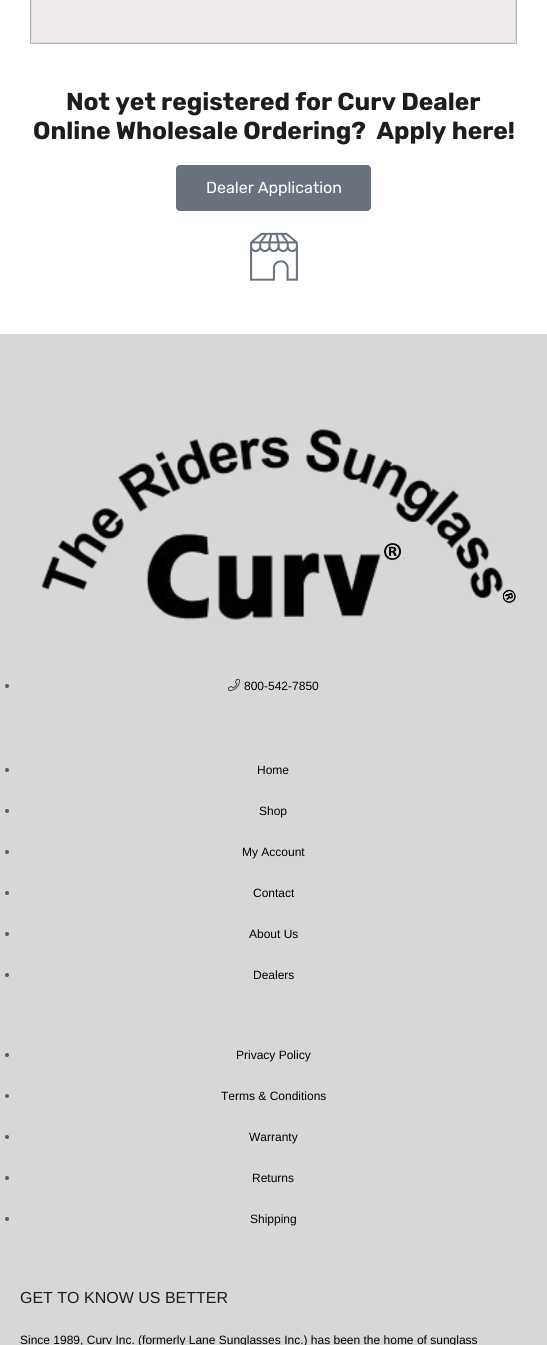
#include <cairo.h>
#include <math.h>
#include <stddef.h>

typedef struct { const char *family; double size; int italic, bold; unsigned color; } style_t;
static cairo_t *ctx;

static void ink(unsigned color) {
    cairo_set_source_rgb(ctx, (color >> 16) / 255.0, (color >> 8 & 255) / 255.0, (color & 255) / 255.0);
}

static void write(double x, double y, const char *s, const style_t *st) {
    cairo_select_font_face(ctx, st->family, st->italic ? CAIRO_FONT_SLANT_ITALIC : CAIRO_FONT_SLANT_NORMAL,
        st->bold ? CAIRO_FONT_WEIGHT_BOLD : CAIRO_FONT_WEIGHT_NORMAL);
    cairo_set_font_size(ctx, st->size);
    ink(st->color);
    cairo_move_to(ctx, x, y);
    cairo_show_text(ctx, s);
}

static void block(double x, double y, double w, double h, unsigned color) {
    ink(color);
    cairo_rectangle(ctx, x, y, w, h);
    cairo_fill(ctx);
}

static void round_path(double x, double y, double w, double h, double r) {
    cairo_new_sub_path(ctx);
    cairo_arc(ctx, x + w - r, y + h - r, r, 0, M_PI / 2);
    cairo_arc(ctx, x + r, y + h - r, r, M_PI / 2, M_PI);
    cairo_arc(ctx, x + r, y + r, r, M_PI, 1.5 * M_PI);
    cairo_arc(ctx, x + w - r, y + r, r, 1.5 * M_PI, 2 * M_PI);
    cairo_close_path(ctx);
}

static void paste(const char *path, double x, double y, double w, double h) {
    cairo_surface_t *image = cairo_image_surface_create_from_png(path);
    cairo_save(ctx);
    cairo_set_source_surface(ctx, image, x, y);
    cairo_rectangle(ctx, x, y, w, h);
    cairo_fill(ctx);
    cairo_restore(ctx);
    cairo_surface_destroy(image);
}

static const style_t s1 = {"Rubik", 24.5, 0, 1, 0x1d1d1d};
static const style_t s2 = {"Rubik", 16, 0, 0, 0xffffff};
static const style_t s3 = {"Liberation Sans", 12, 0, 0, 0x000000};
static const style_t s4 = {"Liberation Sans", 16, 0, 0, 0x1d1d1d};

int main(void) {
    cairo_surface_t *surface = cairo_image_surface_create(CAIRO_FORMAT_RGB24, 547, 1345);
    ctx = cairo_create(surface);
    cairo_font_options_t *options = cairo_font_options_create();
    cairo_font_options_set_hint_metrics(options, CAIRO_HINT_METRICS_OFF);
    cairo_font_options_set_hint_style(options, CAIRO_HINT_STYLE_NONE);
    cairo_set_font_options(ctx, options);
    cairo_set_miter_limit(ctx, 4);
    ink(0xffffff);
    cairo_paint(ctx);
    ink(0xefebeb);
    cairo_rectangle(ctx, 30.5, -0.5, 486, 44);
    cairo_fill_preserve(ctx);
    ink(0xb6b6b6);
    cairo_set_line_width(ctx, 1);
    cairo_stroke(ctx);
    round_path(31.5, -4.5, 484, 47, 3.5);
    ink(0xdcdcdc);
    cairo_stroke(ctx);
    write(66, 110, "Not yet registered for Curv Dealer", &s1);
    write(33, 139, "Online Wholesale Ordering?  Apply here!", &s1);
    ink(0x69727d);
    round_path(176, 165, 195, 46, 4);
    cairo_fill(ctx);
    write(206, 193, "Dealer Application", &s2);
    paste("pic1.png", 250, 232, 48, 49);
    block(0, 334, 547, 1011, 0xd7d7d7);
    paste("pic2.png", 41, 429, 475, 191);
    ink(0x5c5c5c);
    cairo_arc(ctx, 7, 686, 2, 0, 2 * M_PI);
    cairo_fill(ctx);
    paste("pic3.png", 228, 679, 12, 12);
    write(244, 690, "800-542-7850", &s3);
    ink(0x5c5c5c);
    cairo_new_path(ctx);
    cairo_arc(ctx, 7, 770, 2, 0, 2 * M_PI);
    cairo_fill(ctx);
    write(257, 774, "Home", &s3);
    ink(0x5c5c5c);
    cairo_new_path(ctx);
    cairo_arc(ctx, 7, 811, 2, 0, 2 * M_PI);
    cairo_fill(ctx);
    write(259, 815, "Shop", &s3);
    ink(0x5c5c5c);
    cairo_new_path(ctx);
    cairo_arc(ctx, 7, 852, 2, 0, 2 * M_PI);
    cairo_fill(ctx);
    write(242, 856, "My Account", &s3);
    ink(0x5c5c5c);
    cairo_new_path(ctx);
    cairo_arc(ctx, 7, 893, 2, 0, 2 * M_PI);
    cairo_fill(ctx);
    write(253, 897, "Contact", &s3);
    ink(0x5c5c5c);
    cairo_new_path(ctx);
    cairo_arc(ctx, 7, 934, 2, 0, 2 * M_PI);
    cairo_fill(ctx);
    write(249, 938, "About Us", &s3);
    ink(0x5c5c5c);
    cairo_new_path(ctx);
    cairo_arc(ctx, 7, 975, 2, 0, 2 * M_PI);
    cairo_fill(ctx);
    write(253, 979, "Dealers", &s3);
    ink(0x5c5c5c);
    cairo_new_path(ctx);
    cairo_arc(ctx, 7, 1055, 2, 0, 2 * M_PI);
    cairo_fill(ctx);
    write(236, 1059, "Privacy Policy", &s3);
    ink(0x5c5c5c);
    cairo_new_path(ctx);
    cairo_arc(ctx, 7, 1096, 2, 0, 2 * M_PI);
    cairo_fill(ctx);
    write(221, 1100, "Terms & Conditions", &s3);
    ink(0x5c5c5c);
    cairo_new_path(ctx);
    cairo_arc(ctx, 7, 1137, 2, 0, 2 * M_PI);
    cairo_fill(ctx);
    write(249, 1141, "Warranty", &s3);
    ink(0x5c5c5c);
    cairo_new_path(ctx);
    cairo_arc(ctx, 7, 1178, 2, 0, 2 * M_PI);
    cairo_fill(ctx);
    write(252, 1182, "Returns", &s3);
    ink(0x5c5c5c);
    cairo_new_path(ctx);
    cairo_arc(ctx, 7, 1219, 2, 0, 2 * M_PI);
    cairo_fill(ctx);
    write(250, 1223, "Shipping", &s3);
    write(20, 1303, "GET TO KNOW US BETTER", &s4);
    write(20, 1344, "Since 1989, Curv Inc. (formerly Lane Sunglasses Inc.) has been the home of sunglass", &s3);
    cairo_surface_write_to_png(surface, "screenshot.png");
    cairo_font_options_destroy(options);
    cairo_destroy(ctx);
    cairo_surface_destroy(surface);
    return 0;
}
